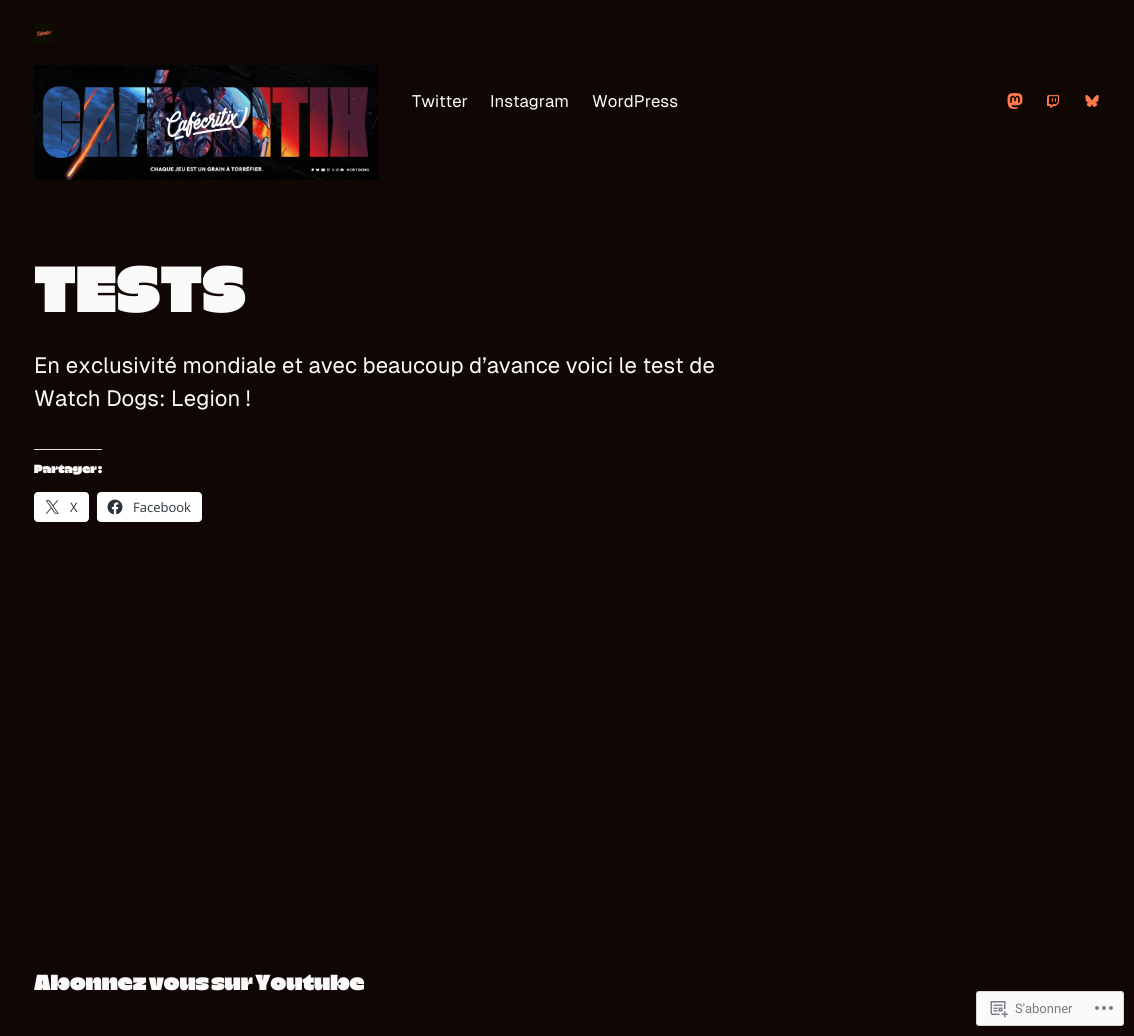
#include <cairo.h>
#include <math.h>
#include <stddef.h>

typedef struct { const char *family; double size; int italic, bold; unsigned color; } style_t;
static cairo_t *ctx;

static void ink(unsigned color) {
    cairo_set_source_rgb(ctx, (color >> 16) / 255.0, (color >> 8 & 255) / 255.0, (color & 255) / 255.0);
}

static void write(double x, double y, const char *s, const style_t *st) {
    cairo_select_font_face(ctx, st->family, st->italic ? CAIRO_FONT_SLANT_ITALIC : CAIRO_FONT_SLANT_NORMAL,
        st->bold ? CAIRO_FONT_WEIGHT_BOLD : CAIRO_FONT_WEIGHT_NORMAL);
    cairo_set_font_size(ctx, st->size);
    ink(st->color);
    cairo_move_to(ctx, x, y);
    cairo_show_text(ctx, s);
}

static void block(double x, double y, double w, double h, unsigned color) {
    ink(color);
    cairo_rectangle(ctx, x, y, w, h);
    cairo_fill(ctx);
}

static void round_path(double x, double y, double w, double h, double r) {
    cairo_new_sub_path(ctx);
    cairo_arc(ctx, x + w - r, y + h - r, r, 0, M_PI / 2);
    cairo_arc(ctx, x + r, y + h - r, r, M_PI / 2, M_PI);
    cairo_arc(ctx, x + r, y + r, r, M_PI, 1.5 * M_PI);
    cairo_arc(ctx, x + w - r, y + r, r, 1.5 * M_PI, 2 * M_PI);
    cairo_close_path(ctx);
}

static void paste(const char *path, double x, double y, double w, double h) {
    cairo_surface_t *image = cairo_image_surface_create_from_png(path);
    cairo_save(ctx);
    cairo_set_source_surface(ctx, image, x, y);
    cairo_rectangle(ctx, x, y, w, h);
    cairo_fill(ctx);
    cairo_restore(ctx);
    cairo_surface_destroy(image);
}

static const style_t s1 = {"Geist", 16.75, 0, 0, 0xfafafa};
static const style_t s2 = {"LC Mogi", 66, 0, 0, 0xfafafa};
static const style_t s3 = {"Geist", 22.1, 0, 0, 0xfafafa};
static const style_t s4 = {"LC Mogi", 12, 0, 0, 0xfafafa};
static const style_t s5 = {"Open Sans", 13, 0, 0, 0x2c3338};
static const style_t s6 = {"LC Mogi", 22.1, 0, 0, 0xfafafa};
static const style_t s7 = {"Roboto", 13, 0, 0, 0x767a7f};

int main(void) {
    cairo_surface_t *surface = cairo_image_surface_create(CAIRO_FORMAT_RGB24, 1134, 1036);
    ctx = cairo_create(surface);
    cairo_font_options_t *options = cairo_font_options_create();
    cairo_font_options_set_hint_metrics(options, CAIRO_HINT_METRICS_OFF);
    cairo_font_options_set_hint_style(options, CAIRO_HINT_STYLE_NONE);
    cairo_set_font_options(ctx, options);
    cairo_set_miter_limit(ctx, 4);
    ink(0x100704);
    cairo_paint(ctx);
    paste("pic1.png", 34, 23, 20, 20);
    paste("pic2.png", 34, 65, 344, 115);
    write(412, 107, "Twitter", &s1);
    write(490, 107, "Instagram", &s1);
    write(592, 107, "WordPress", &s1);
    paste("pic3.png", 1007, 93, 16, 16);
    paste("pic4.png", 1047, 95, 12, 13);
    paste("pic5.png", 1085, 95, 14, 12);
    write(34, 312, "TESTS", &s2);
    write(34, 373, "En exclusivité mondiale et avec beaucoup d’avance voici le test de", &s3);
    write(34, 406, "Watch Dogs: Legion !", &s3);
    block(34, 449, 68, 1, 0xdcdcde);
    write(34, 473, "Partager :", &s4);
    ink(0xffffff);
    round_path(34, 492, 55, 30, 4);
    cairo_fill(ctx);
    paste("pic6.png", 45, 500, 14, 14);
    write(70, 512, "X", &s5);
    ink(0xffffff);
    round_path(97, 492, 105, 30, 4);
    cairo_fill(ctx);
    paste("pic7.png", 107, 499, 16, 16);
    write(133, 512, "Facebook", &s5);
    write(34, 990, "Abonnez vous sur Youtube", &s6);
    round_path(976.5, 991.5, 147, 34, 2.5);
    cairo_fill_preserve(ctx);
    ink(0xd8d8da);
    cairo_set_line_width(ctx, 1);
    cairo_stroke(ctx);
    paste("pic8.png", 990, 1001, 18, 17);
    write(1015, 1013, "S'abonner", &s7);
    paste("pic9.png", 1095, 1006, 18, 4);
    cairo_surface_write_to_png(surface, "screenshot.png");
    cairo_font_options_destroy(options);
    cairo_destroy(ctx);
    cairo_surface_destroy(surface);
    return 0;
}
